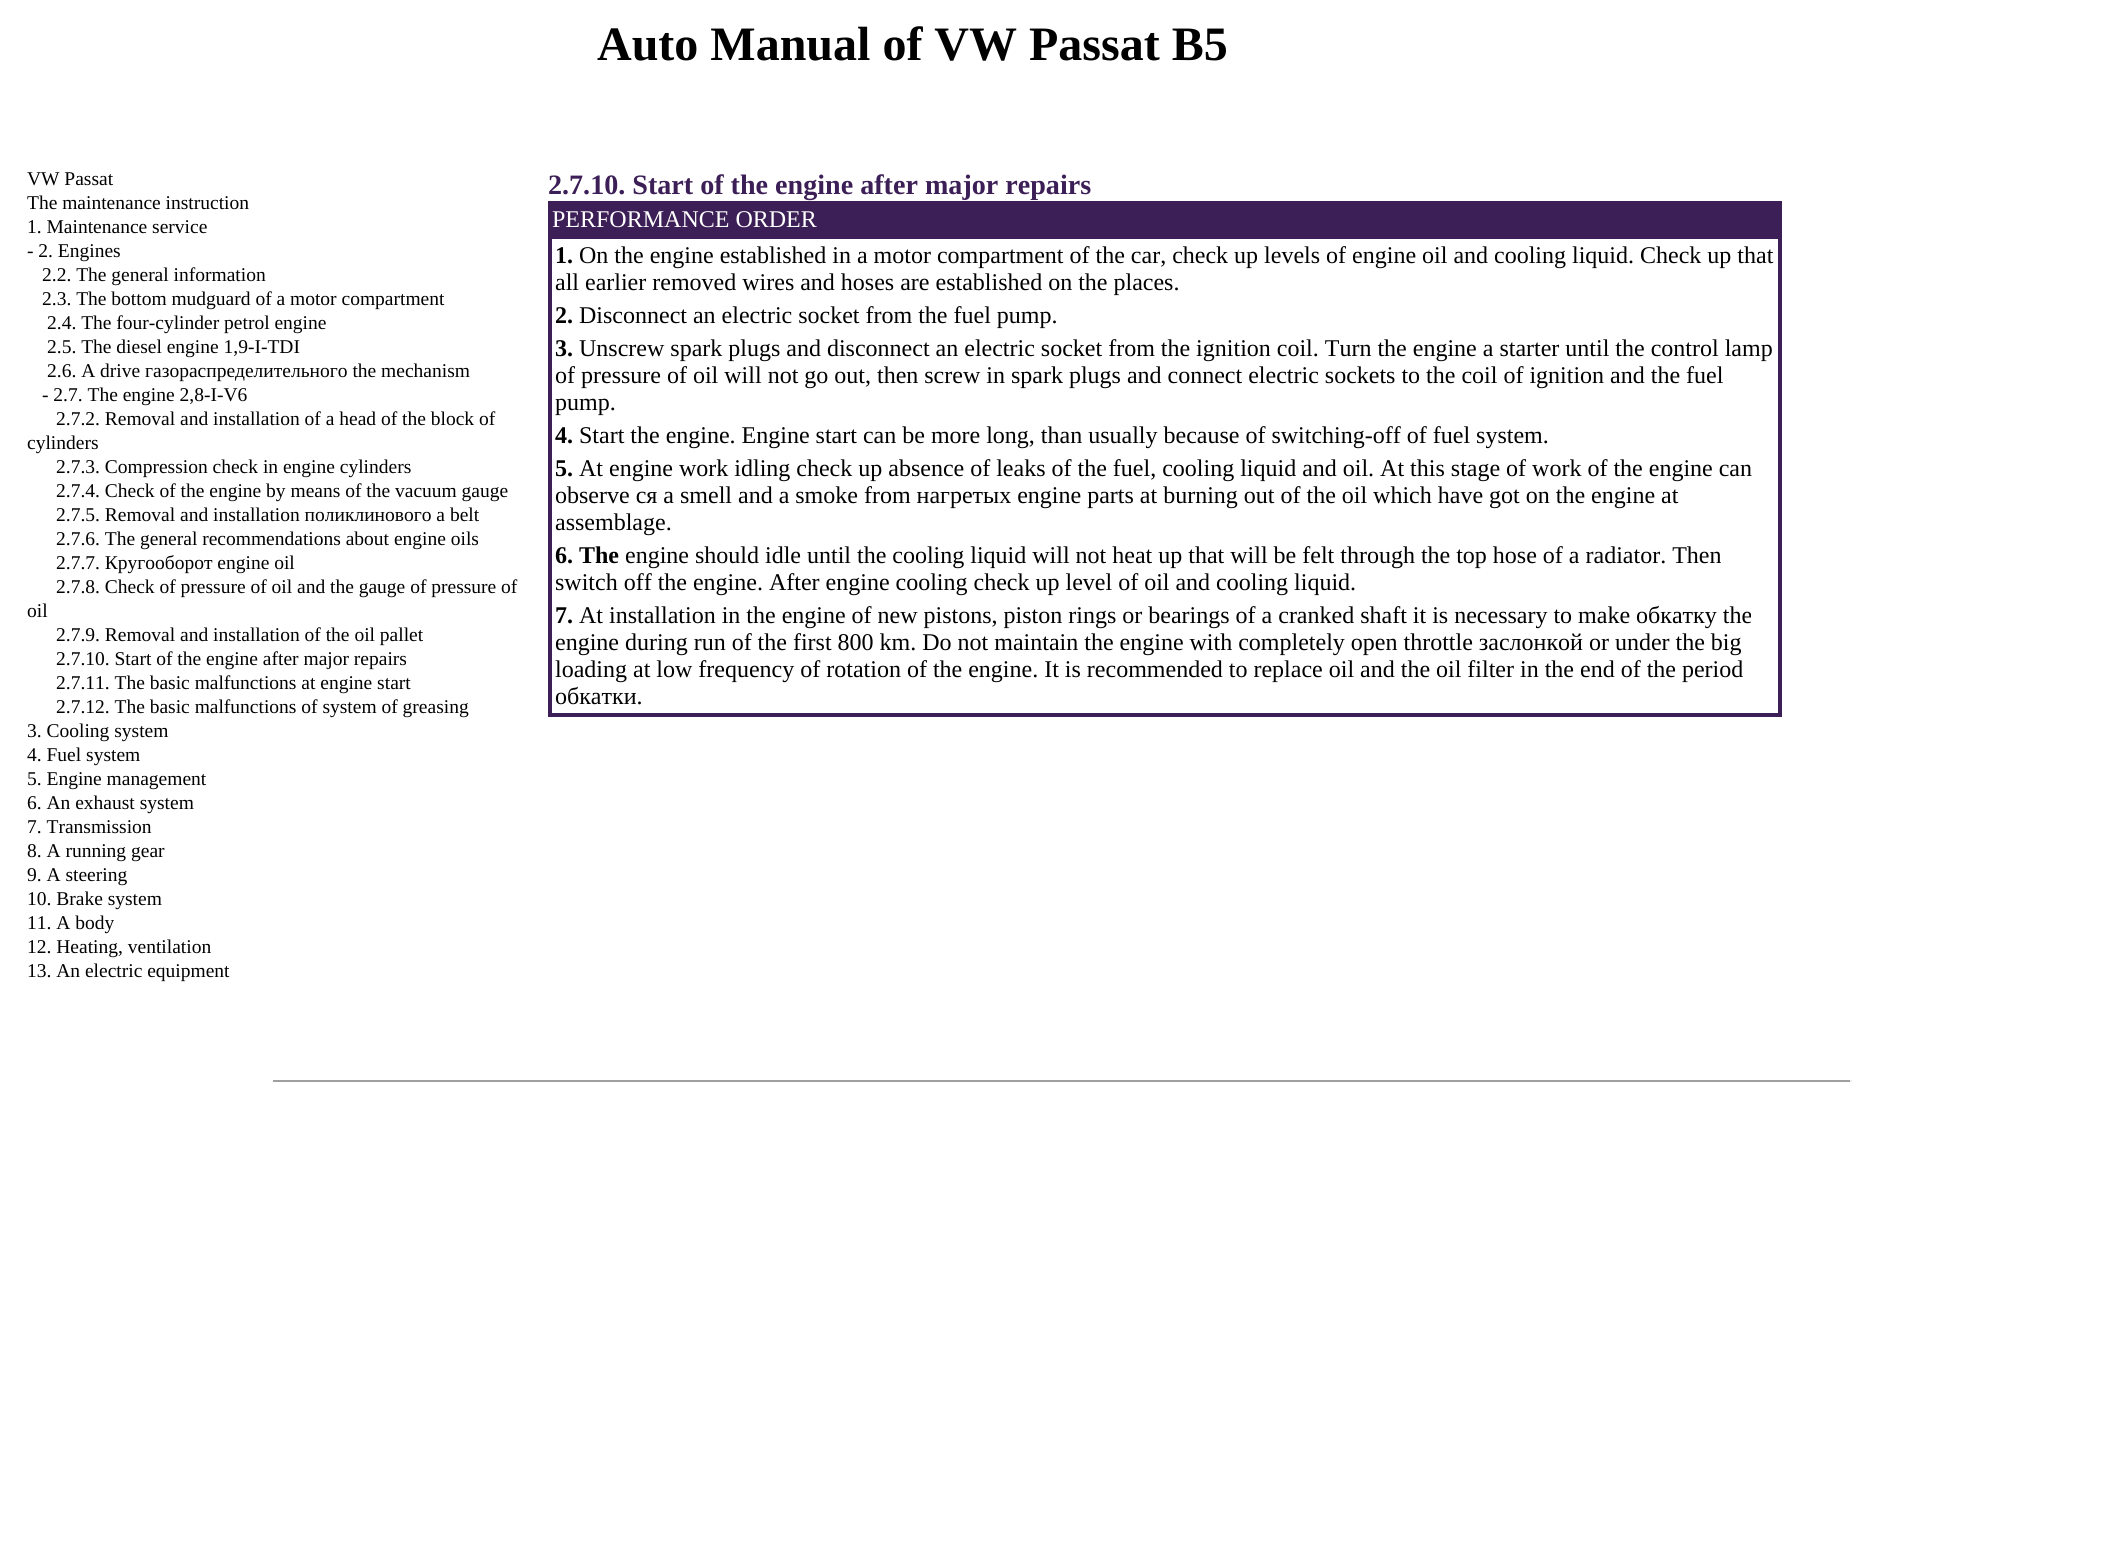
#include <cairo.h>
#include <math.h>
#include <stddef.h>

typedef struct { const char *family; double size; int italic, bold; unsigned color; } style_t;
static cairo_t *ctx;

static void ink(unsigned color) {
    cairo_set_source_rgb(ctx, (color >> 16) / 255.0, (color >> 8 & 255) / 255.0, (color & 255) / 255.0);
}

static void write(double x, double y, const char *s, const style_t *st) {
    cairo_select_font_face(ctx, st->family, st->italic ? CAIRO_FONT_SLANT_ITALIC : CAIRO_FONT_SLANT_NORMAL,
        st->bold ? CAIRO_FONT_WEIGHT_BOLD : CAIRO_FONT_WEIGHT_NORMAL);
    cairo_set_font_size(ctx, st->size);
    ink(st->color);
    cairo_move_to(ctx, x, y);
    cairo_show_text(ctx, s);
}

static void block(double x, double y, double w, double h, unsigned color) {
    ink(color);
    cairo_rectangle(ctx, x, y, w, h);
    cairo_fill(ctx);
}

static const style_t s1 = {"Liberation Serif", 48, 0, 1, 0x000000};
static const style_t s2 = {"Liberation Serif", 19.5, 0, 0, 0x000000};
static const style_t s3 = {"Liberation Serif", 28.1, 0, 1, 0x3c1f56};
static const style_t s4 = {"Liberation Serif", 24, 0, 0, 0xffffff};
static const style_t s5 = {"Liberation Serif", 24, 0, 1, 0x000000};
static const style_t s6 = {"Liberation Serif", 24, 0, 0, 0x000000};

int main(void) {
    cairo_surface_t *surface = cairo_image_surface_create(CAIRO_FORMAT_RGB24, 2123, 1547);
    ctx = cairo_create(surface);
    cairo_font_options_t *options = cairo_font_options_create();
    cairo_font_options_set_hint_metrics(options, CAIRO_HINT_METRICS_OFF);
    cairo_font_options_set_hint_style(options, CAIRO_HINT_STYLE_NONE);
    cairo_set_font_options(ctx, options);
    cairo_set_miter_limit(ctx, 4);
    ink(0xffffff);
    cairo_paint(ctx);
    write(597, 60, "Auto Manual of VW Passat B5", &s1);
    write(27, 185, "VW Passat", &s2);
    write(27, 209, "The maintenance instruction", &s2);
    write(27, 233, "1. Maintenance service", &s2);
    write(27, 257, "- 2. Engines", &s2);
    write(42, 281, "2.2. The general information", &s2);
    write(42, 305, "2.3. The bottom mudguard of a motor compartment", &s2);
    write(47, 329, "2.4. The four-cylinder petrol engine", &s2);
    write(47, 353, "2.5. The diesel engine 1,9-I-TDI", &s2);
    write(47, 377, "2.6. A drive газораспределительного the mechanism", &s2);
    write(42, 401, "- 2.7. The engine 2,8-I-V6", &s2);
    write(56, 425, "2.7.2. Removal and installation of a head of the block of", &s2);
    write(27, 449, "cylinders", &s2);
    write(56, 473, "2.7.3. Compression check in engine cylinders", &s2);
    write(56, 497, "2.7.4. Check of the engine by means of the vacuum gauge", &s2);
    write(56, 521, "2.7.5. Removal and installation поликлинового a belt", &s2);
    write(56, 545, "2.7.6. The general recommendations about engine oils", &s2);
    write(56, 569, "2.7.7. Кругооборот engine oil", &s2);
    write(56, 593, "2.7.8. Check of pressure of oil and the gauge of pressure of", &s2);
    write(27, 617, "oil", &s2);
    write(56, 641, "2.7.9. Removal and installation of the oil pallet", &s2);
    write(56, 665, "2.7.10. Start of the engine after major repairs", &s2);
    write(56, 689, "2.7.11. The basic malfunctions at engine start", &s2);
    write(56, 713, "2.7.12. The basic malfunctions of system of greasing", &s2);
    write(27, 737, "3. Cooling system", &s2);
    write(27, 761, "4. Fuel system", &s2);
    write(27, 785, "5. Engine management", &s2);
    write(27, 809, "6. An exhaust system", &s2);
    write(27, 833, "7. Transmission", &s2);
    write(27, 857, "8. A running gear", &s2);
    write(27, 881, "9. A steering", &s2);
    write(27, 905, "10. Brake system", &s2);
    write(27, 929, "11. A body", &s2);
    write(27, 953, "12. Heating, ventilation", &s2);
    write(27, 977, "13. An electric equipment", &s2);
    write(548, 194, "2.7.10. Start of the engine after major repairs", &s3);
    block(548, 201, 1234, 516, 0x3c1f56);
    write(552, 227, "PERFORMANCE ORDER", &s4);
    block(552, 239, 1226, 474, 0xffffff);
    write(555, 263, "1.", &s5);
    write(579, 263, "On the engine established in a motor compartment of the car, check up levels of engine oil and cooling liquid. Check up that", &s6);
    write(555, 290, "all earlier removed wires and hoses are established on the places.", &s6);
    write(555, 323, "2.", &s5);
    write(579, 323, "Disconnect an electric socket from the fuel pump.", &s6);
    write(555, 356, "3.", &s5);
    write(579, 356, "Unscrew spark plugs and disconnect an electric socket from the ignition coil. Turn the engine a starter until the control lamp", &s6);
    write(555, 383, "of pressure of oil will not go out, then screw in spark plugs and connect electric sockets to the coil of ignition and the fuel", &s6);
    write(555, 410, "pump.", &s6);
    write(555, 443, "4.", &s5);
    write(579, 443, "Start the engine. Engine start can be more long, than usually because of switching-off of fuel system.", &s6);
    write(555, 476, "5.", &s5);
    write(579, 476, "At engine work idling check up absence of leaks of the fuel, cooling liquid and oil. At this stage of work of the engine can", &s6);
    write(555, 503, "observe ся a smell and a smoke from нагретых engine parts at burning out of the oil which have got on the engine at", &s6);
    write(555, 530, "assemblage.", &s6);
    write(555, 563, "6. The", &s5);
    write(625, 563, "engine should idle until the cooling liquid will not heat up that will be felt through the top hose of a radiator. Then", &s6);
    write(555, 590, "switch off the engine. After engine cooling check up level of oil and cooling liquid.", &s6);
    write(555, 623, "7.", &s5);
    write(579, 623, "At installation in the engine of new pistons, piston rings or bearings of a cranked shaft it is necessary to make обкатку the", &s6);
    write(555, 650, "engine during run of the first 800 km. Do not maintain the engine with completely open throttle заслонкой or under the big", &s6);
    write(555, 677, "loading at low frequency of rotation of the engine. It is recommended to replace oil and the oil filter in the end of the period", &s6);
    write(555, 704, "обкатки.", &s6);
    block(273, 1080, 1578, 2, 0x9f9f9f);
    block(1850, 1080, 2, 2, 0xeeeeee);
    cairo_surface_write_to_png(surface, "screenshot.png");
    cairo_font_options_destroy(options);
    cairo_destroy(ctx);
    cairo_surface_destroy(surface);
    return 0;
}
